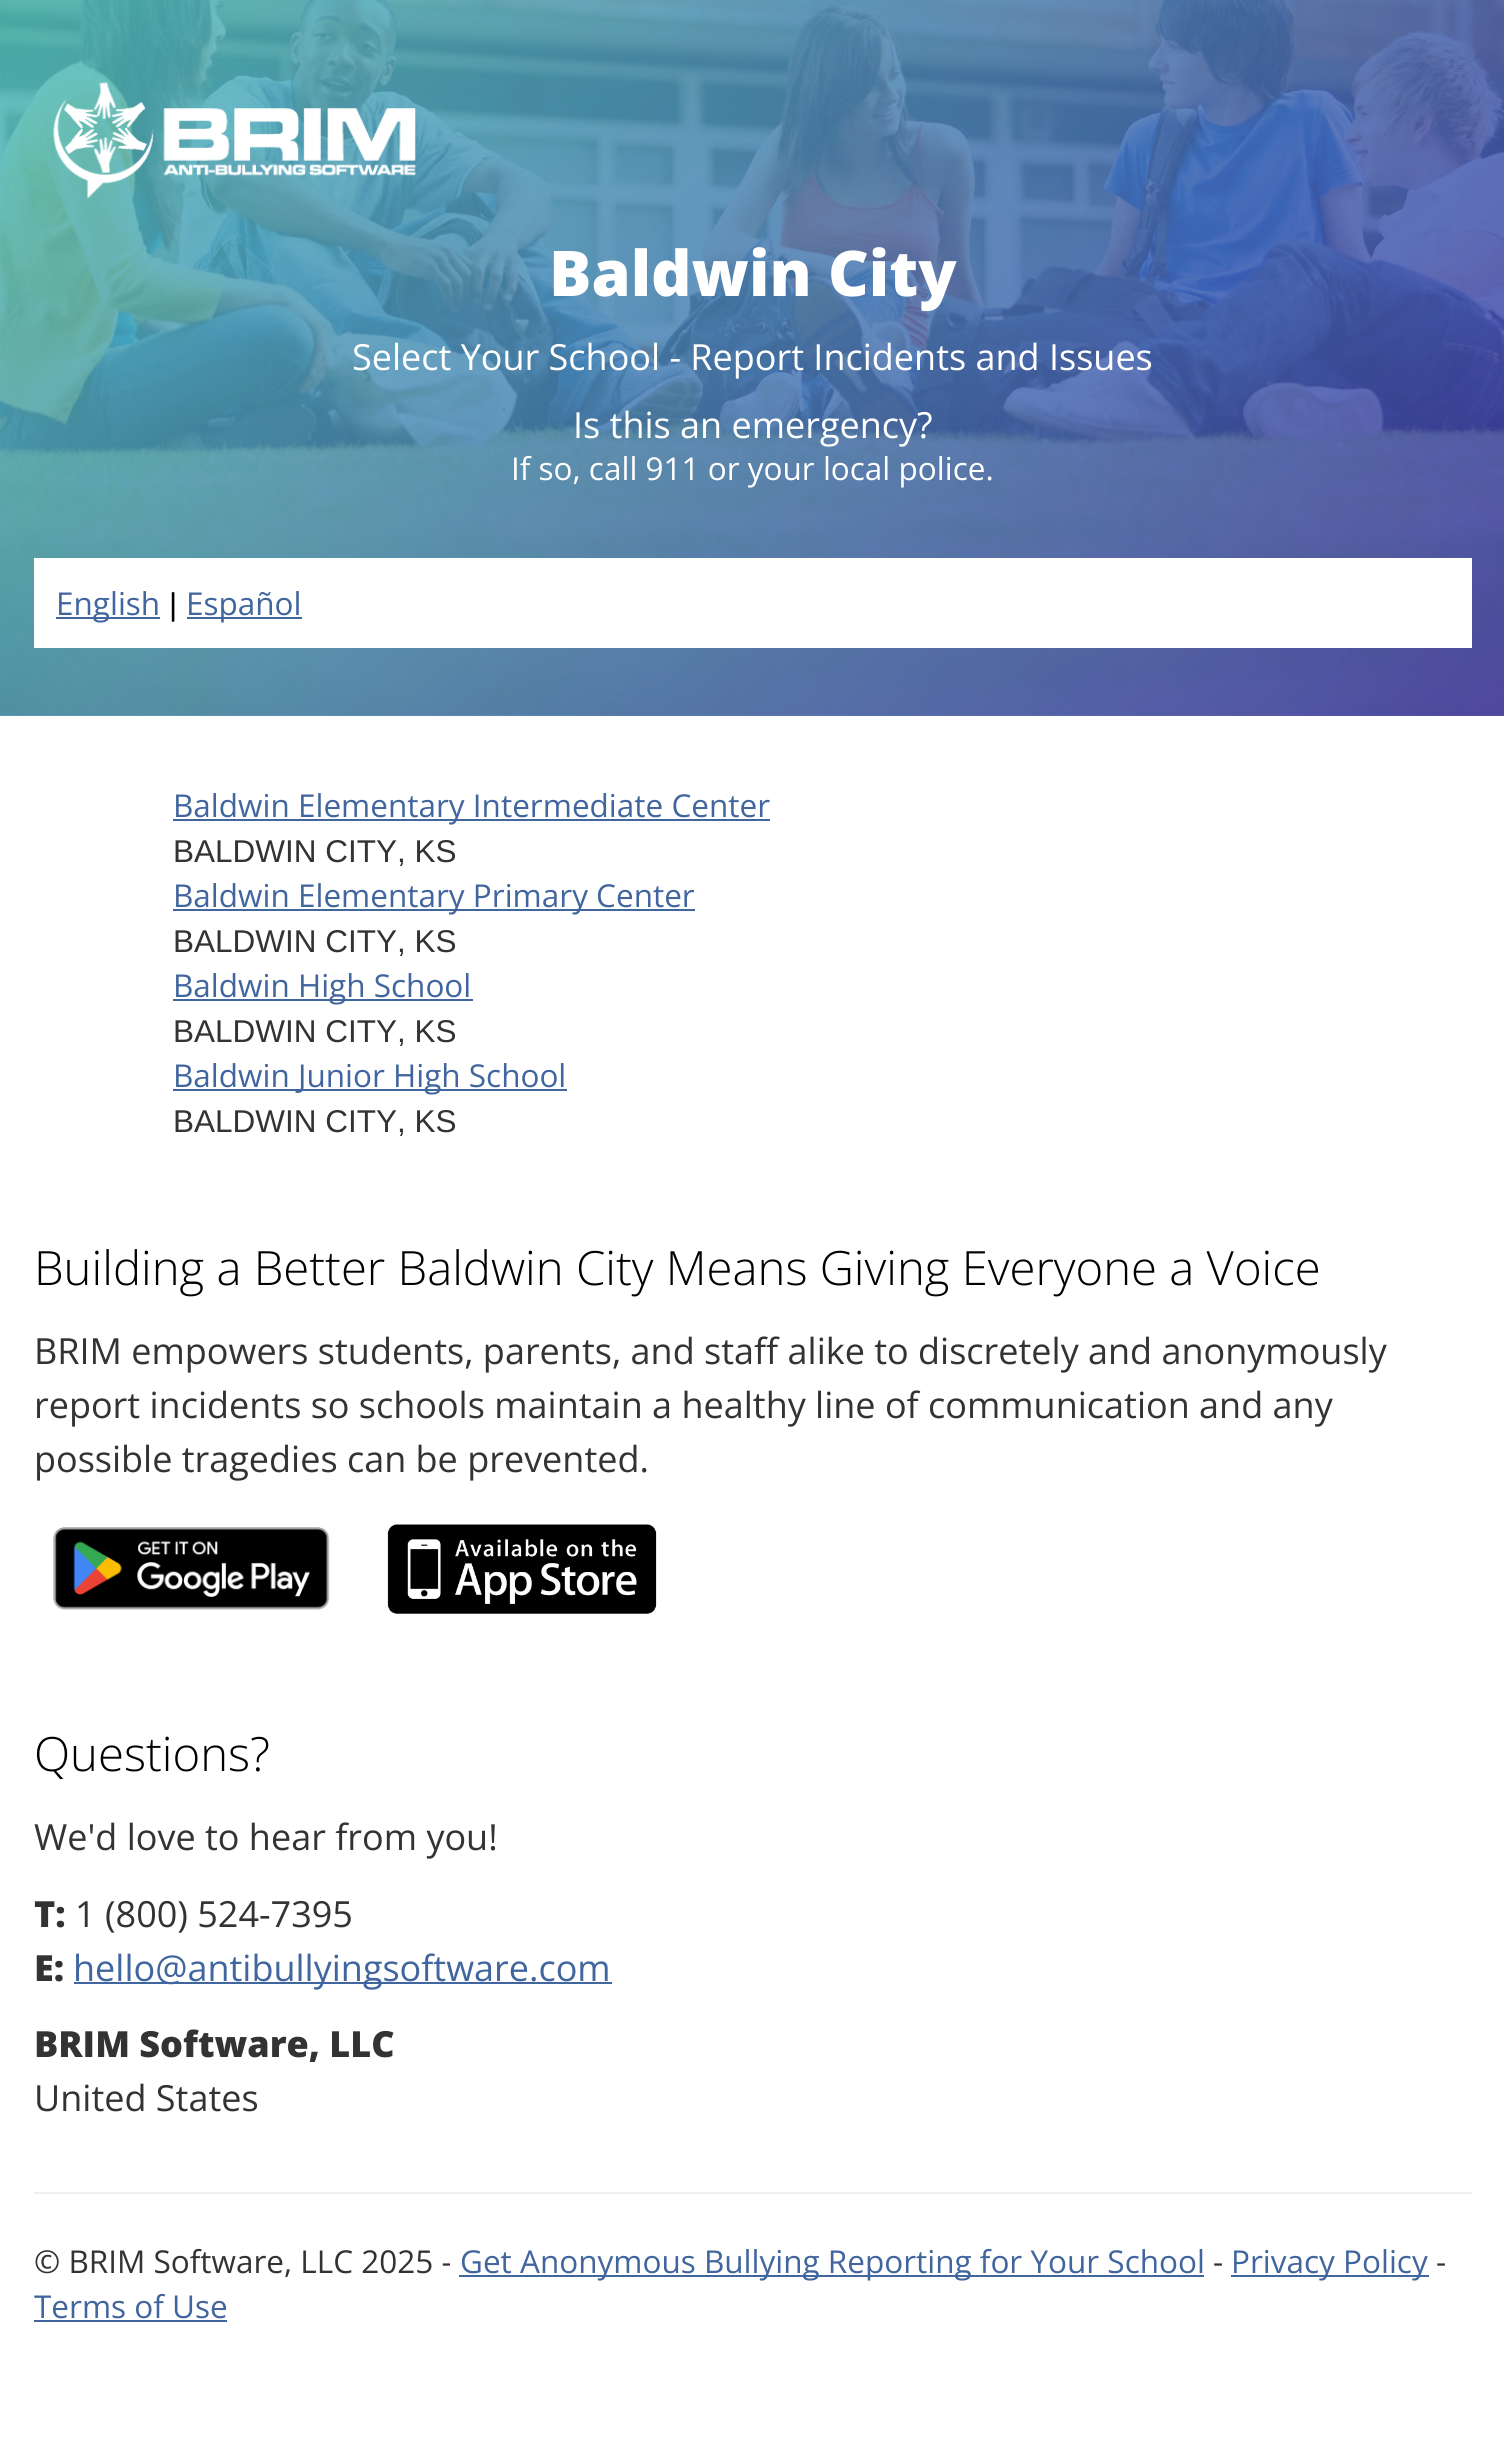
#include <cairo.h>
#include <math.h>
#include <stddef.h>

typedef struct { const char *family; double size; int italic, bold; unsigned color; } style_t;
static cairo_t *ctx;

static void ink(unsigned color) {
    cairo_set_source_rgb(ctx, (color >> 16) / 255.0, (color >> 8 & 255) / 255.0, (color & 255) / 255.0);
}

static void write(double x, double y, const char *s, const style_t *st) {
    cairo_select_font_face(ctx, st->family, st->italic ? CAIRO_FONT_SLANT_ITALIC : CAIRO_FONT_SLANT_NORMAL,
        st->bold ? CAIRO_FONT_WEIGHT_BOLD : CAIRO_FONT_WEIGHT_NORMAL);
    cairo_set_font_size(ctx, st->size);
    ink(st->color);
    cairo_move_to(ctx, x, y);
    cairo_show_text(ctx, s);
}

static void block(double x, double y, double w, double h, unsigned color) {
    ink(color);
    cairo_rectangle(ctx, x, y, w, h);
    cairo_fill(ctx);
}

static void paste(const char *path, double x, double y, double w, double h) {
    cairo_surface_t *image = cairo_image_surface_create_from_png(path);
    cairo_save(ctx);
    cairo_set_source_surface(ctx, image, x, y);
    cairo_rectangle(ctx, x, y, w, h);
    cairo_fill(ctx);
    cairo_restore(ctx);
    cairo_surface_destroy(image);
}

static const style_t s1 = {"Open Sans ExtraBold", 63, 0, 0, 0xffffff};
static const style_t s2 = {"Open Sans", 36, 0, 0, 0xffffff};
static const style_t s3 = {"Open Sans", 31.5, 0, 0, 0xffffff};
static const style_t s4 = {"Open Sans", 31.5, 0, 0, 0x41659e};
static const style_t s5 = {"Liberation Sans", 31.5, 0, 0, 0x000000};
static const style_t s6 = {"Liberation Sans", 31.5, 0, 0, 0x333333};
static const style_t s7 = {"Open Sans Light", 47.25, 0, 0, 0x000000};
static const style_t s8 = {"Open Sans", 36, 0, 0, 0x333333};
static const style_t s9 = {"Open Sans ExtraBold", 36, 0, 0, 0x333333};
static const style_t s10 = {"Open Sans", 36, 0, 0, 0x41659e};
static const style_t s11 = {"Open Sans", 31.5, 0, 0, 0x333333};

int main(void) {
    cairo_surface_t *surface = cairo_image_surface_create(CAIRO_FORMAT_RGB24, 1504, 2458);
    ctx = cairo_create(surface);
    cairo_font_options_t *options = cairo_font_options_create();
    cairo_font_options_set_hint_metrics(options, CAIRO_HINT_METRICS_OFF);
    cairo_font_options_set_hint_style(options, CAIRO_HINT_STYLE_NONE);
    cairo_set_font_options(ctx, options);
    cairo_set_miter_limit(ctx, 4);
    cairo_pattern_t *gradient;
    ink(0xffffff);
    cairo_paint(ctx);
    paste("pic1.png", 0, 0, 1504, 716);
    gradient = cairo_pattern_create_linear(197, -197, 1308, 913);
    cairo_pattern_add_color_stop_rgba(gradient, 0, 0.322, 0.765, 0.745, 0.85);
    cairo_pattern_add_color_stop_rgba(gradient, 1, 0.243, 0.2, 0.659, 0.85);
    cairo_set_source(ctx, gradient);
    cairo_pattern_destroy(gradient);
    cairo_rectangle(ctx, 0, 0, 1504, 716);
    cairo_fill(ctx);
    paste("pic2.png", 53, 82, 363, 117);
    write(549, 296, "Baldwin City", &s1);
    write(352, 370, "Select Your School - Report Incidents and Issues", &s2);
    write(573, 438, "Is this an emergency?", &s2);
    write(511, 480, "If so, call 911 or your local police.", &s3);
    block(34, 558, 1438, 90, 0xffffff);
    block(56, 617, 104, 2, 0x41659e);
    write(56, 615, "English", &s4);
    write(169, 615, "|", &s5);
    block(187, 617, 115, 2, 0x41659e);
    write(186, 615, "Español", &s4);
    block(173, 819, 597, 2, 0x41659e);
    write(173, 817, "Baldwin Elementary Intermediate Center", &s4);
    write(173, 862, "BALDWIN CITY, KS", &s6);
    block(173, 909, 522, 2, 0x41659e);
    write(173, 907, "Baldwin Elementary Primary Center", &s4);
    write(173, 952, "BALDWIN CITY, KS", &s6);
    block(173, 999, 300, 2, 0x41659e);
    write(173, 997, "Baldwin High School", &s4);
    write(173, 1042, "BALDWIN CITY, KS", &s6);
    block(173, 1089, 394, 2, 0x41659e);
    write(173, 1087, "Baldwin Junior High School", &s4);
    write(173, 1132, "BALDWIN CITY, KS", &s6);
    write(34, 1285, "Building a Better Baldwin City Means Giving Everyone a Voice", &s7);
    write(34, 1364, "BRIM empowers students, parents, and staff alike to discretely and anonymously", &s8);
    write(34, 1418, "report incidents so schools maintain a healthy line of communication and any", &s8);
    write(34, 1472, "possible tragedies can be prevented.", &s8);
    paste("pic3.png", 53, 1527, 277, 83);
    paste("pic4.png", 387, 1524, 270, 90);
    write(34, 1771, "Questions?", &s7);
    write(34, 1850, "We'd love to hear from you!", &s8);
    write(34, 1927, "T:", &s9);
    write(75, 1927, "1 (800) 524-7395", &s8);
    write(34, 1981, "E:", &s9);
    block(74, 1982, 538, 2, 0x41659e);
    write(73, 1981, "hello@antibullyingsoftware.com", &s10);
    write(34, 2057, "BRIM Software, LLC", &s9);
    write(34, 2111, "United States", &s8);
    block(34, 2192, 1438, 2, 0xeeeeee);
    write(34, 2273, "© BRIM Software, LLC 2025 -", &s11);
    block(459, 2275, 745, 2, 0x41659e);
    write(460, 2273, "Get Anonymous Bullying Reporting for Your School", &s4);
    write(1213, 2273, "-", &s11);
    block(1231, 2275, 198, 2, 0x41659e);
    write(1231, 2273, "Privacy Policy", &s4);
    write(1436, 2273, "-", &s11);
    write(34, 2318, "Terms of Use", &s4);
    block(34, 2320, 193, 2, 0x41659e);
    cairo_surface_write_to_png(surface, "screenshot.png");
    cairo_font_options_destroy(options);
    cairo_destroy(ctx);
    cairo_surface_destroy(surface);
    return 0;
}
